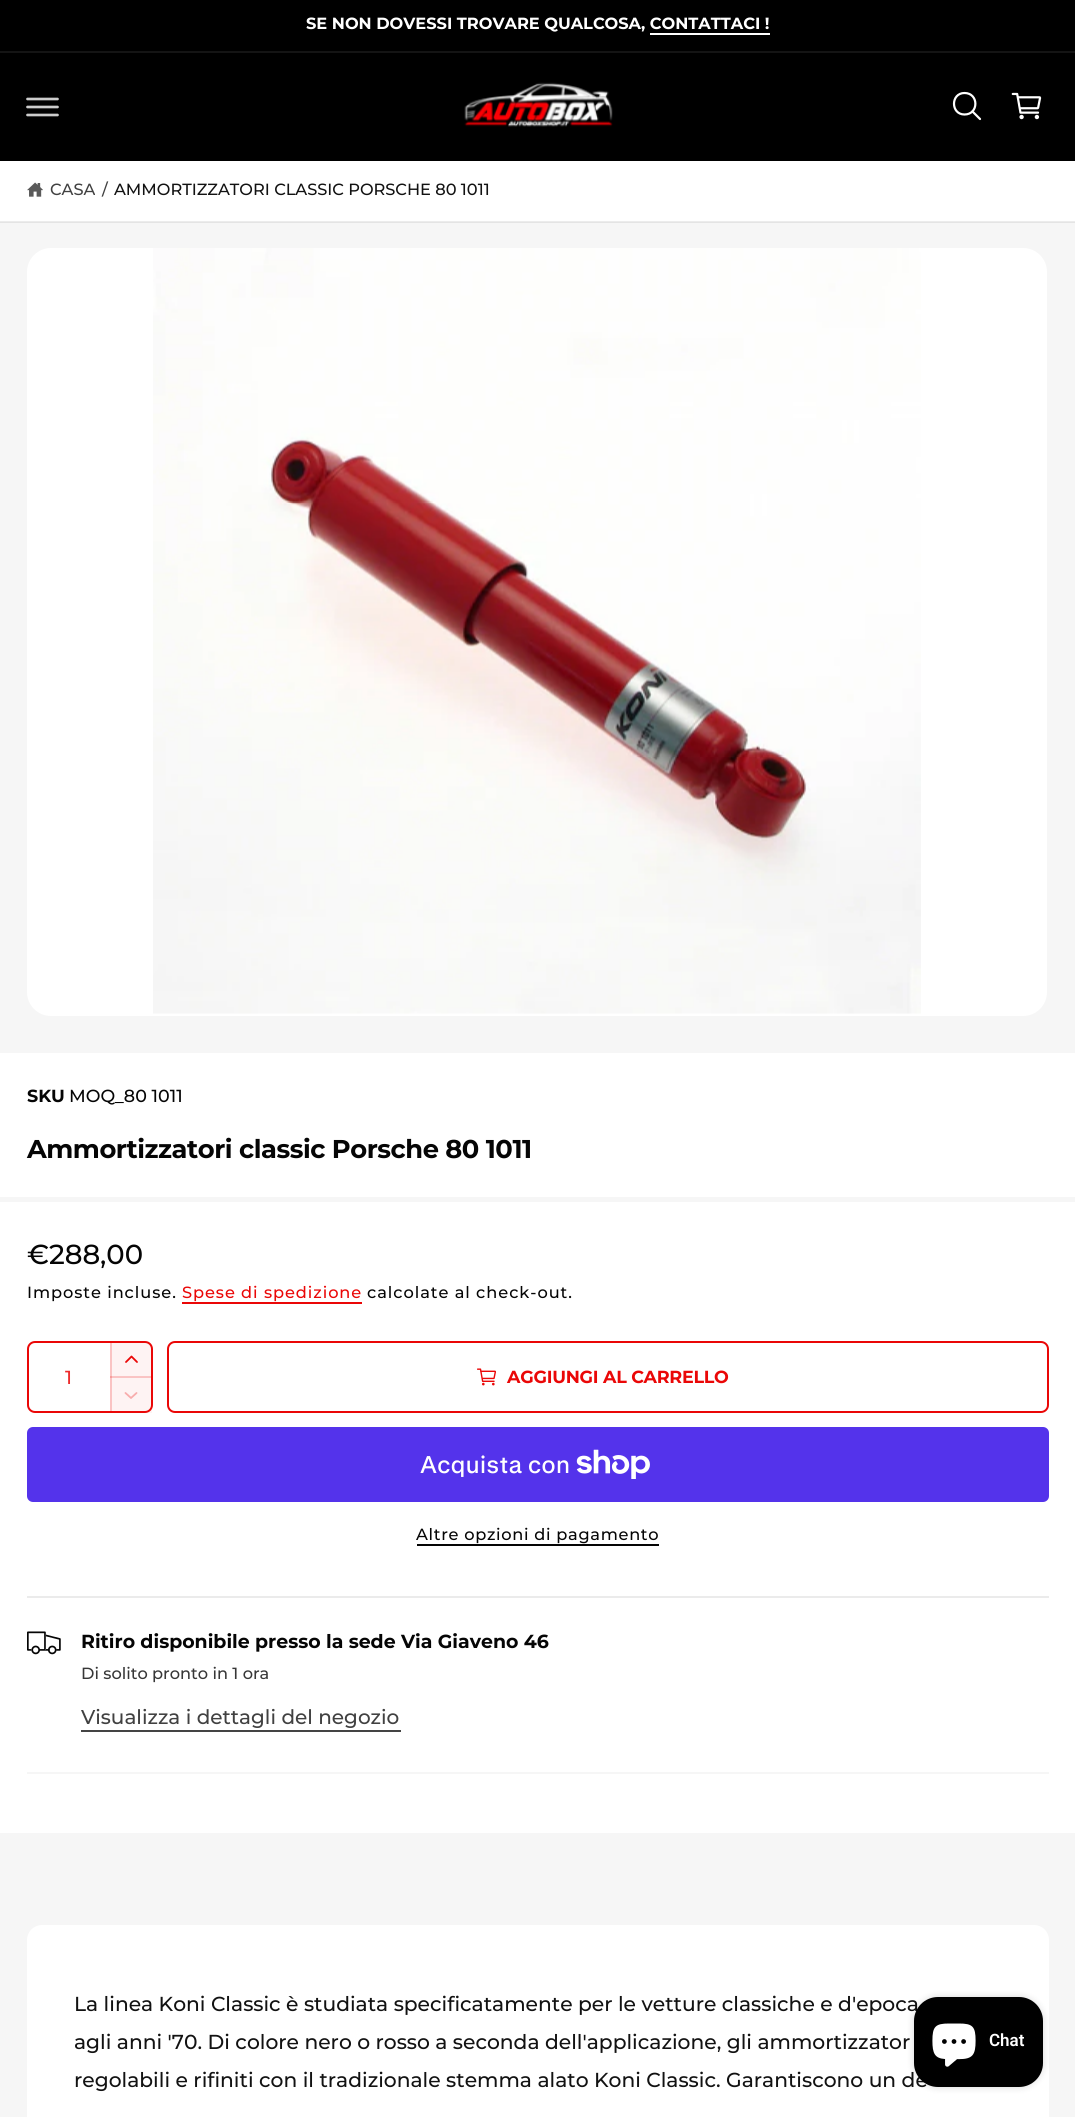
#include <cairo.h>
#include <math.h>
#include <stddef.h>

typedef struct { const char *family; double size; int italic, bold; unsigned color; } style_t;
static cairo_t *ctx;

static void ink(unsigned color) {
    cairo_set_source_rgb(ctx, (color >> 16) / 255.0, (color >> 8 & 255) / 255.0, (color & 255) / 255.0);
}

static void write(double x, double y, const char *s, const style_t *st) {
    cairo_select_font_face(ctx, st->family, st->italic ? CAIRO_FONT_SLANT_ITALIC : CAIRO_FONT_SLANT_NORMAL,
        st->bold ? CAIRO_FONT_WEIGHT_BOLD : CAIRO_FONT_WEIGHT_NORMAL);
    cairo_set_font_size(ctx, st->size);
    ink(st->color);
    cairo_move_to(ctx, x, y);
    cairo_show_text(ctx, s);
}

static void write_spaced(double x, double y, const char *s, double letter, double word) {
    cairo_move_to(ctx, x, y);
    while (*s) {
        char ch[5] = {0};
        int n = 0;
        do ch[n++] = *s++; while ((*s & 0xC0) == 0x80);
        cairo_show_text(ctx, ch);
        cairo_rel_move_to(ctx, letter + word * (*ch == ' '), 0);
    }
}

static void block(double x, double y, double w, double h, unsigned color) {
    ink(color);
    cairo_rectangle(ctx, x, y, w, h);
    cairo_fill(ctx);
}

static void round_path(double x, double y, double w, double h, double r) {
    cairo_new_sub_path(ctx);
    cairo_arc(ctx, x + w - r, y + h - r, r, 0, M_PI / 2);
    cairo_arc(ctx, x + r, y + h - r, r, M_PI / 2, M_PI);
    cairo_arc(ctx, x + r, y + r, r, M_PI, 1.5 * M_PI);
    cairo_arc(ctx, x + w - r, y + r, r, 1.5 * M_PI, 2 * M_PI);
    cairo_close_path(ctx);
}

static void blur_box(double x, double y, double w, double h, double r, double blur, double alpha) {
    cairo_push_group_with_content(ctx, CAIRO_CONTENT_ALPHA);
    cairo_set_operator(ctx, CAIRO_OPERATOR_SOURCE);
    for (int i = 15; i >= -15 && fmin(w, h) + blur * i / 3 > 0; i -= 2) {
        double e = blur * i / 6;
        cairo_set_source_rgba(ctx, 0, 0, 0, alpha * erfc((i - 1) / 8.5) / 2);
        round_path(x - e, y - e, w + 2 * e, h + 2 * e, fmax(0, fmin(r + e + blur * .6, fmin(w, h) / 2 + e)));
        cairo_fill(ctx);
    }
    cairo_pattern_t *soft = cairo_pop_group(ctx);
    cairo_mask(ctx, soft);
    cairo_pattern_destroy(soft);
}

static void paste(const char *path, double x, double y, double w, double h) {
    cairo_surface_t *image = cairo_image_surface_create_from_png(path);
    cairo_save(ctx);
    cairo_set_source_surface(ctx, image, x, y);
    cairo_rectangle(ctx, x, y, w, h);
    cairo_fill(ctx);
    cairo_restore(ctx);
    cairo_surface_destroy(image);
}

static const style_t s1 = {"Montserrat", 16.2, 0, 1, 0xffffff};
static const style_t s2 = {"Montserrat Medium", 16.2, 0, 0, 0x414141};
static const style_t s3 = {"Montserrat Medium", 16.2, 0, 0, 0x121212};
static const style_t s4 = {"Montserrat", 17.5, 0, 1, 0x050505};
static const style_t s5 = {"Montserrat Medium", 17.5, 0, 0, 0x050505};
static const style_t s6 = {"Montserrat Medium", 27.5, 0, 0, 0x050505};
static const style_t s7 = {"Montserrat Medium", 18.9, 0, 0, 0xed2c2c};
static const style_t s8 = {"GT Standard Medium", 24, 0, 0, 0xffffff};
static const style_t s9 = {"Montserrat", 18.9, 0, 1, 0x050505};
static const style_t s10 = {"Montserrat Medium", 16.2, 0, 0, 0x373737};
static const style_t s11 = {"Montserrat Medium", 20, 0, 0, 0x414141};
static const style_t s12 = {"Montserrat Medium", 20.25, 0, 0, 0x121212};
static const style_t s13 = {"Roboto SemiBold", 17, 0, 0, 0xffffff};

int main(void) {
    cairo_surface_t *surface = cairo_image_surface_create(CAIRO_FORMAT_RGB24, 1075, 2117);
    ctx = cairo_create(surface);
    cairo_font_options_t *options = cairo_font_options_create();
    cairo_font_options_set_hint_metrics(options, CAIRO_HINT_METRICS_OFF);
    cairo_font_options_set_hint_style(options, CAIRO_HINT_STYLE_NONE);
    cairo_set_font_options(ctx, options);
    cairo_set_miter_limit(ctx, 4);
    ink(0xf6f6f6);
    cairo_paint(ctx);
    block(0, 222, 1075, 1, 0xe4e4e4);
    block(0, 0, 1075, 51, 0x000000);
    block(0, 51, 1075, 2, 0x141414);
    write(306, 29, "SE NON DOVESSI TROVARE QUALCOSA, CONTATTACI !", &s1);
    block(650, 33, 120, 2, 0xffffff);
    block(0, 53, 1075, 108, 0x000000);
    cairo_new_path(ctx);
    cairo_move_to(ctx, 27.5, 99);
    cairo_line_to(ctx, 57.5, 99);
    cairo_move_to(ctx, 27.5, 107);
    cairo_line_to(ctx, 57.5, 107);
    cairo_move_to(ctx, 27.5, 115);
    cairo_line_to(ctx, 57.5, 115);
    ink(0xcccccc);
    cairo_set_line_width(ctx, 2.7);
    cairo_set_line_cap(ctx, CAIRO_LINE_CAP_ROUND);
    cairo_stroke(ctx);
    paste("pic1.png", 464, 82, 149, 45);
    cairo_new_path(ctx);
    cairo_move_to(ctx, 964.5, 93);
    cairo_curve_to(ctx, 950.5, 93, 950.5, 114.5, 964.5, 114.5);
    cairo_curve_to(ctx, 979, 114.5, 979, 93, 964.5, 93);
    cairo_close_path(ctx);
    ink(0xffffff);
    cairo_set_line_width(ctx, 2.2);
    cairo_set_line_cap(ctx, CAIRO_LINE_CAP_BUTT);
    cairo_stroke(ctx);
    cairo_new_path(ctx);
    cairo_move_to(ctx, 972.5, 111.5);
    cairo_line_to(ctx, 980, 119);
    cairo_set_line_cap(ctx, CAIRO_LINE_CAP_ROUND);
    cairo_stroke(ctx);
    paste("pic2.png", 1011, 92, 31, 28);
    block(0, 161, 1075, 60, 0xffffff);
    block(0, 221, 1075, 1, 0xececec);
    paste("pic3.png", 27, 182, 16, 15);
    write(50, 195, "CASA", &s2);
    write(102, 195, "/", &s2);
    write(114, 195, "AMMORTIZZATORI CLASSIC PORSCHE 80 1011", &s3);
    ink(0xffffff);
    round_path(27, 248, 1020, 768, 24);
    cairo_fill(ctx);
    paste("pic4.png", 153, 248, 768, 766);
    block(0, 1053, 1075, 780, 0xffffff);
    block(110, 1377, 42, 1, 0xfbcdcd);
    write(27, 1102, "SKU", &s4);
    write(69, 1102, "MOQ_80 1011", &s5);
    cairo_select_font_face(ctx, "Montserrat", CAIRO_FONT_SLANT_NORMAL, CAIRO_FONT_WEIGHT_BOLD);
    cairo_set_font_size(ctx, 25.75);
    write_spaced(27, 1158, "Ammortizzatori classic Porsche 80 1011", -0.45, 0);
    block(0, 1197, 1075, 5, 0xf6f6f6);
    write(27, 1264, "€288,00", &s6);
    cairo_set_font_size(ctx, 16.2);
    write_spaced(27, 1298, "Imposte incluse.", 0.95, 0);
    ink(0xea0707);
    write_spaced(182, 1298, "Spese di spedizione", 0.95, 0);
    block(182, 1302, 180, 2, 0xea0707);
    ink(0x050505);
    write_spaced(367, 1298, "calcolate al check-out.", 0.95, 0);
    ink(0xfef3f3);
    cairo_new_path(ctx);
    cairo_move_to(ctx, 110, 1341);
    cairo_line_to(ctx, 146, 1341);
    cairo_curve_to(ctx, 149.5, 1341, 152, 1343.5, 152, 1347);
    cairo_line_to(ctx, 152, 1377);
    cairo_line_to(ctx, 110, 1377);
    cairo_close_path(ctx);
    cairo_fill(ctx);
    block(110, 1341, 2, 36, 0xfac4c4);
    block(110, 1376, 42, 1, 0xfac4c4);
    block(110, 1376, 2, 1, 0xf79e9e);
    cairo_new_path(ctx);
    cairo_move_to(ctx, 137, 1362);
    cairo_line_to(ctx, 131.5, 1356.5);
    cairo_line_to(ctx, 126, 1362);
    ink(0xea0707);
    cairo_set_line_width(ctx, 1.8);
    cairo_set_line_join(ctx, CAIRO_LINE_JOIN_ROUND);
    cairo_stroke(ctx);
    cairo_set_source_rgba(ctx, 0.918, 0.027, 0.027, 0.05);
    cairo_rectangle(ctx, 110, 1377, 42, 36);
    cairo_fill(ctx);
    cairo_set_source_rgba(ctx, 0.918, 0.027, 0.027, 0.2);
    cairo_rectangle(ctx, 110, 1377, 2, 36);
    cairo_fill(ctx);
    cairo_new_path(ctx);
    cairo_move_to(ctx, 125.5, 1393);
    cairo_line_to(ctx, 131, 1398);
    cairo_line_to(ctx, 136.5, 1393);
    ink(0xf8acac);
    cairo_stroke(ctx);
    round_path(28, 1342, 124, 70, 7);
    ink(0xffffff);
    cairo_set_line_width(ctx, 2);
    cairo_set_line_cap(ctx, CAIRO_LINE_CAP_BUTT);
    cairo_set_line_join(ctx, CAIRO_LINE_JOIN_MITER);
    cairo_stroke(ctx);
    round_path(28, 1342, 124, 70, 7);
    ink(0xea0707);
    cairo_stroke(ctx);
    write(65, 1384, "1", &s7);
    paste("pic5.png", 477, 1368, 19, 18);
    round_path(168, 1342, 880, 70, 7);
    ink(0xea0707);
    cairo_stroke(ctx);
    cairo_select_font_face(ctx, "Montserrat", CAIRO_FONT_SLANT_NORMAL, CAIRO_FONT_WEIGHT_BOLD);
    cairo_set_font_size(ctx, 17.5);
    write_spaced(507, 1383, "AGGIUNGI AL CARRELLO", -0.25, 0);
    ink(0x5433eb);
    round_path(27, 1427, 1022, 75, 6);
    cairo_fill(ctx);
    write(420, 1473, "Acquista con", &s8);
    paste("pic6.png", 576, 1449, 74, 30);
    cairo_select_font_face(ctx, "Montserrat Medium", CAIRO_FONT_SLANT_NORMAL, CAIRO_FONT_WEIGHT_NORMAL);
    cairo_set_font_size(ctx, 16.2);
    ink(0x050505);
    write_spaced(416, 1540, "Altre opzioni di pagamento", 0.7, 0);
    block(417, 1544, 242, 2, 0x050505);
    block(27, 1596, 1022, 2, 0xebebeb);
    paste("pic7.png", 27, 1631, 34, 24);
    write(81, 1648, "Ritiro disponibile presso la sede Via Giaveno 46", &s9);
    write(81, 1679, "Di solito pronto in 1 ora", &s10);
    write(81, 1724, "Visualizza i dettagli del negozio", &s11);
    block(81, 1730, 320, 2, 0x444444);
    block(27, 1772, 1022, 2, 0xf6f6f6);
    ink(0xffffff);
    round_path(27, 1925, 1022, 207, 15);
    cairo_fill(ctx);
    write(74, 2011, "La linea Koni Classic è studiata specificatamente per le vetture classiche e d'epoca", &s12);
    write(74, 2049, "agli anni '70. Di colore nero o rosso a seconda dell'applicazione, gli ammortizzator", &s12);
    write(74, 2087, "regolabili e rifiniti con il tradizionale stemma alato Koni Classic. Garantiscono un de", &s12);
    ink(0x000000);
    blur_box(914, 1997, 129, 90, 24, 4, 0.15);
    ink(0x000000);
    round_path(914, 1997, 129, 90, 24);
    cairo_fill(ctx);
    paste("pic8.png", 932, 2023, 44, 44);
    write(989, 2046, "Chat", &s13);
    cairo_surface_write_to_png(surface, "screenshot.png");
    cairo_font_options_destroy(options);
    cairo_destroy(ctx);
    cairo_surface_destroy(surface);
    return 0;
}
